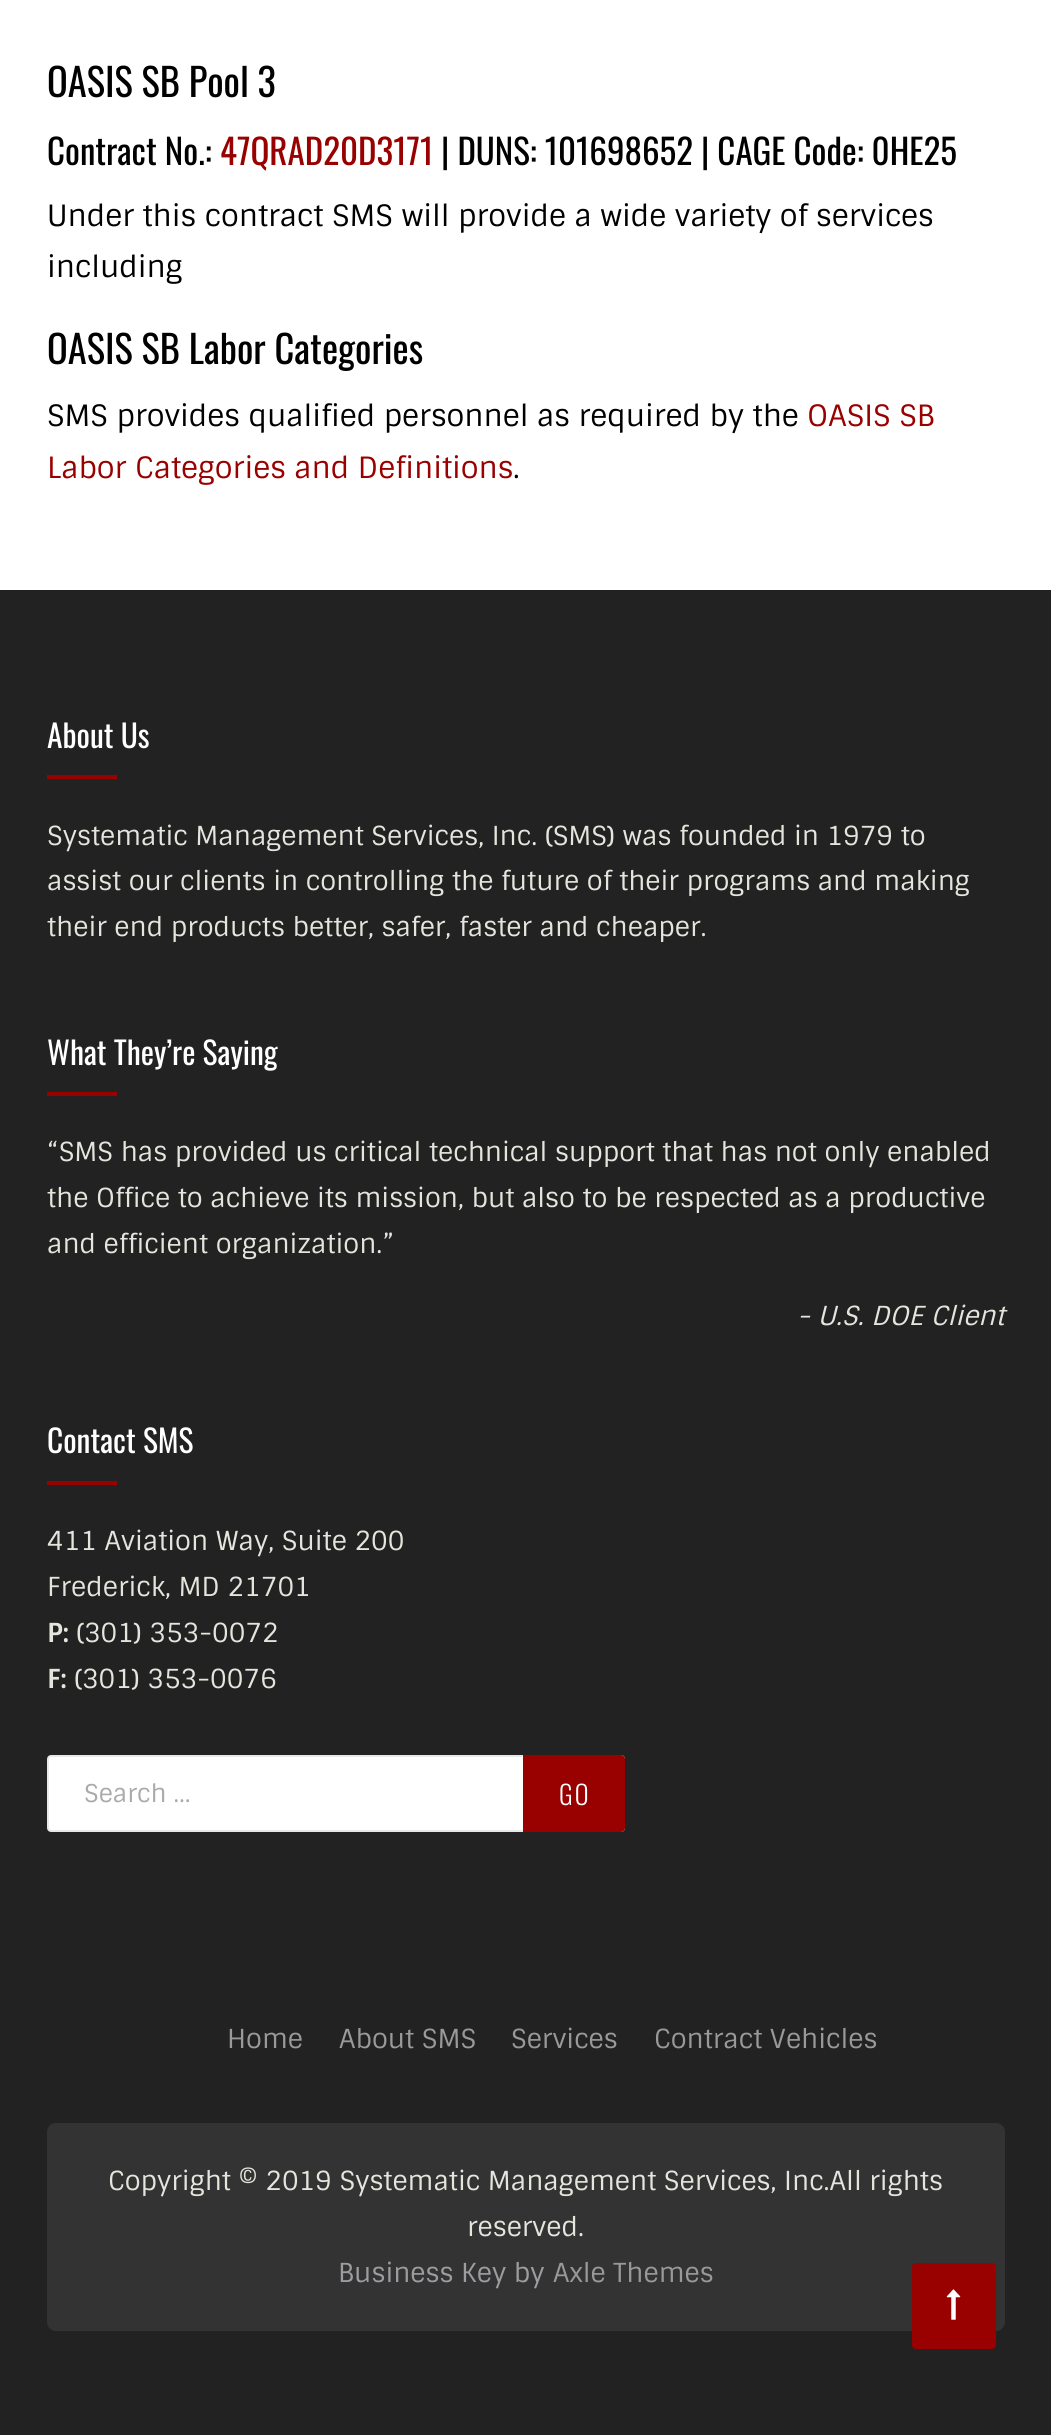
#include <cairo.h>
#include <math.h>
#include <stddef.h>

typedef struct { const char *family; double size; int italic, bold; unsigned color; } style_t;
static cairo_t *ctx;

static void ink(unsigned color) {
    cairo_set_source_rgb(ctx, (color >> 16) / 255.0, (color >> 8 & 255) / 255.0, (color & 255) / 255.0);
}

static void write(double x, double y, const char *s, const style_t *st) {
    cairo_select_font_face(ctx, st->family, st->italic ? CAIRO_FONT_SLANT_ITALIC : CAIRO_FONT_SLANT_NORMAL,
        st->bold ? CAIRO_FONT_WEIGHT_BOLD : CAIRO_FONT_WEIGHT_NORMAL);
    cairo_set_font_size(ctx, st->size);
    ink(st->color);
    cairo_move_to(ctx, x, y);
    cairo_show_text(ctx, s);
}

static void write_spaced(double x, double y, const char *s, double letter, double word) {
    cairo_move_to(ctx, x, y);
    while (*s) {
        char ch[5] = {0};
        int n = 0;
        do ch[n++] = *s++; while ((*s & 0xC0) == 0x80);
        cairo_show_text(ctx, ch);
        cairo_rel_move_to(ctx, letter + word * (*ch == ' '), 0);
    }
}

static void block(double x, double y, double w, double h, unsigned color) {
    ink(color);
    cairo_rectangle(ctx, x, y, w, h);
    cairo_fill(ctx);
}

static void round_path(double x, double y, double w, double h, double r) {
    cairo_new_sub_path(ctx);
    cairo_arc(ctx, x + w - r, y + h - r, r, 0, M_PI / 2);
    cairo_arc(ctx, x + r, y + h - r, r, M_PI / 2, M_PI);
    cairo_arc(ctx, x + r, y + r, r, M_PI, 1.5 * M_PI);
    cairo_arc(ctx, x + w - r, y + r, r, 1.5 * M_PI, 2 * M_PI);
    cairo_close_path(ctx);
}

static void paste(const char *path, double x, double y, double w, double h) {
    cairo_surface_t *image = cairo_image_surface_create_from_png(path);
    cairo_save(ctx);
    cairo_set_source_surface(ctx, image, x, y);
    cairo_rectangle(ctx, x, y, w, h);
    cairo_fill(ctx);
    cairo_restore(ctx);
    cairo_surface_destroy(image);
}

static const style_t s1 = {"Oswald", 38.5, 0, 0, 0x000000};
static const style_t s2 = {"Oswald", 35, 0, 0, 0x000000};
static const style_t s3 = {"Oswald", 35, 0, 0, 0x990000};
static const style_t s4 = {"Sintony", 29.4, 0, 0, 0x000000};
static const style_t s5 = {"Sintony", 29.4, 0, 0, 0x990000};
static const style_t s6 = {"Oswald", 31.5, 0, 0, 0xffffff};
static const style_t s7 = {"Sintony", 26.25, 0, 0, 0xe5e5de};
static const style_t s8 = {"Sintony", 26.25, 1, 0, 0xe5e5de};
static const style_t s9 = {"Sintony", 26.25, 0, 1, 0xe5e5de};
static const style_t s10 = {"Sintony", 24.5, 0, 0, 0xaaaaaa};
static const style_t s11 = {"Sintony", 26.25, 0, 0, 0x999999};
static const style_t s12 = {"Sintony", 26.25, 0, 0, 0x9b9da0};

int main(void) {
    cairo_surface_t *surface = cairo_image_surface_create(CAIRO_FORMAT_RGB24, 1051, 2435);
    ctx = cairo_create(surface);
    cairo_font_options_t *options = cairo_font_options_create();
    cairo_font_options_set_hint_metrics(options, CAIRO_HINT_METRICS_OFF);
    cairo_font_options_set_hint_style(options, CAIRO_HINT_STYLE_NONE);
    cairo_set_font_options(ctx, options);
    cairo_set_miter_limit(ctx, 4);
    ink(0xffffff);
    cairo_paint(ctx);
    write(47, 97, "OASIS SB Pool 3", &s1);
    write(47, 165, "Contract No.:", &s2);
    write(220, 165, "47QRAD20D3171", &s3);
    write(441, 165, "| DUNS: 101698652 | CAGE Code: 0HE25", &s2);
    write(47, 226, "Under this contract SMS will provide a wide variety of services", &s4);
    write(47, 277, "including", &s4);
    write(47, 364, "OASIS SB Labor Categories", &s1);
    write(47, 426, "SMS provides qualified personnel as required by the", &s4);
    write(807, 426, "OASIS SB", &s5);
    write(47, 478, "Labor Categories and Definitions", &s5);
    write(513, 478, ".", &s4);
    block(0, 590, 1051, 1845, 0x222222);
    write(47, 748, "About Us", &s6);
    block(47, 775, 70, 4, 0x990000);
    write(47, 845, "Systematic Management Services, Inc. (SMS) was founded in 1979 to", &s7);
    write(47, 890, "assist our clients in controlling the future of their programs and making", &s7);
    write(47, 936, "their end products better, safer, faster and cheaper.", &s7);
    write(47, 1065, "What They’re Saying", &s6);
    block(47, 1092, 70, 4, 0x990000);
    write(47, 1161, "“SMS has provided us critical technical support that has not only enabled", &s7);
    write(47, 1207, "the Office to achieve its mission, but also to be respected as a productive", &s7);
    write(47, 1253, "and efficient organization.”", &s7);
    write(797, 1325, "- U.S. DOE Client", &s8);
    write(47, 1453, "Contact SMS", &s6);
    block(47, 1481, 70, 4, 0x990000);
    write(47, 1550, "411 Aviation Way, Suite 200", &s7);
    write(47, 1596, "Frederick, MD 21701", &s7);
    write(47, 1642, "P:", &s9);
    write(76, 1642, "(301) 353-0072", &s7);
    write(47, 1688, "F:", &s9);
    write(74, 1688, "(301) 353-0076", &s7);
    ink(0xffffff);
    round_path(48, 1756, 576, 75, 3);
    cairo_fill_preserve(ctx);
    ink(0xe8e8e8);
    cairo_stroke(ctx);
    write(84, 1802, "Search …", &s10);
    ink(0x990000);
    cairo_new_path(ctx);
    cairo_move_to(ctx, 523, 1755);
    cairo_line_to(ctx, 621, 1755);
    cairo_curve_to(ctx, 623, 1755, 625, 1757, 625, 1759);
    cairo_line_to(ctx, 625, 1828);
    cairo_curve_to(ctx, 625, 1830, 623, 1832, 621, 1832);
    cairo_line_to(ctx, 523, 1832);
    cairo_close_path(ctx);
    cairo_fill(ctx);
    cairo_select_font_face(ctx, "Oswald Light", CAIRO_FONT_SLANT_NORMAL, CAIRO_FONT_WEIGHT_NORMAL);
    cairo_set_font_size(ctx, 26.25);
    ink(0xffffff);
    write_spaced(559, 1805, "GO", 2, 0);
    write(227, 2048, "Home", &s11);
    write(339, 2048, "About SMS", &s11);
    write(511, 2048, "Services", &s11);
    write(654, 2048, "Contract Vehicles", &s11);
    ink(0x333333);
    round_path(47, 2123, 958, 208, 9);
    cairo_fill(ctx);
    write(108, 2190, "Copyright © 2019 Systematic Management Services, Inc.All rights", &s7);
    write(467, 2236, "reserved.", &s7);
    write(338, 2282, "Business Key by", &s12);
    write(553, 2282, "Axle Themes", &s11);
    ink(0x990000);
    round_path(912, 2263, 84, 86, 4);
    cairo_fill(ctx);
    paste("pic1.png", 946, 2289, 15, 31);
    cairo_surface_write_to_png(surface, "screenshot.png");
    cairo_font_options_destroy(options);
    cairo_destroy(ctx);
    cairo_surface_destroy(surface);
    return 0;
}
